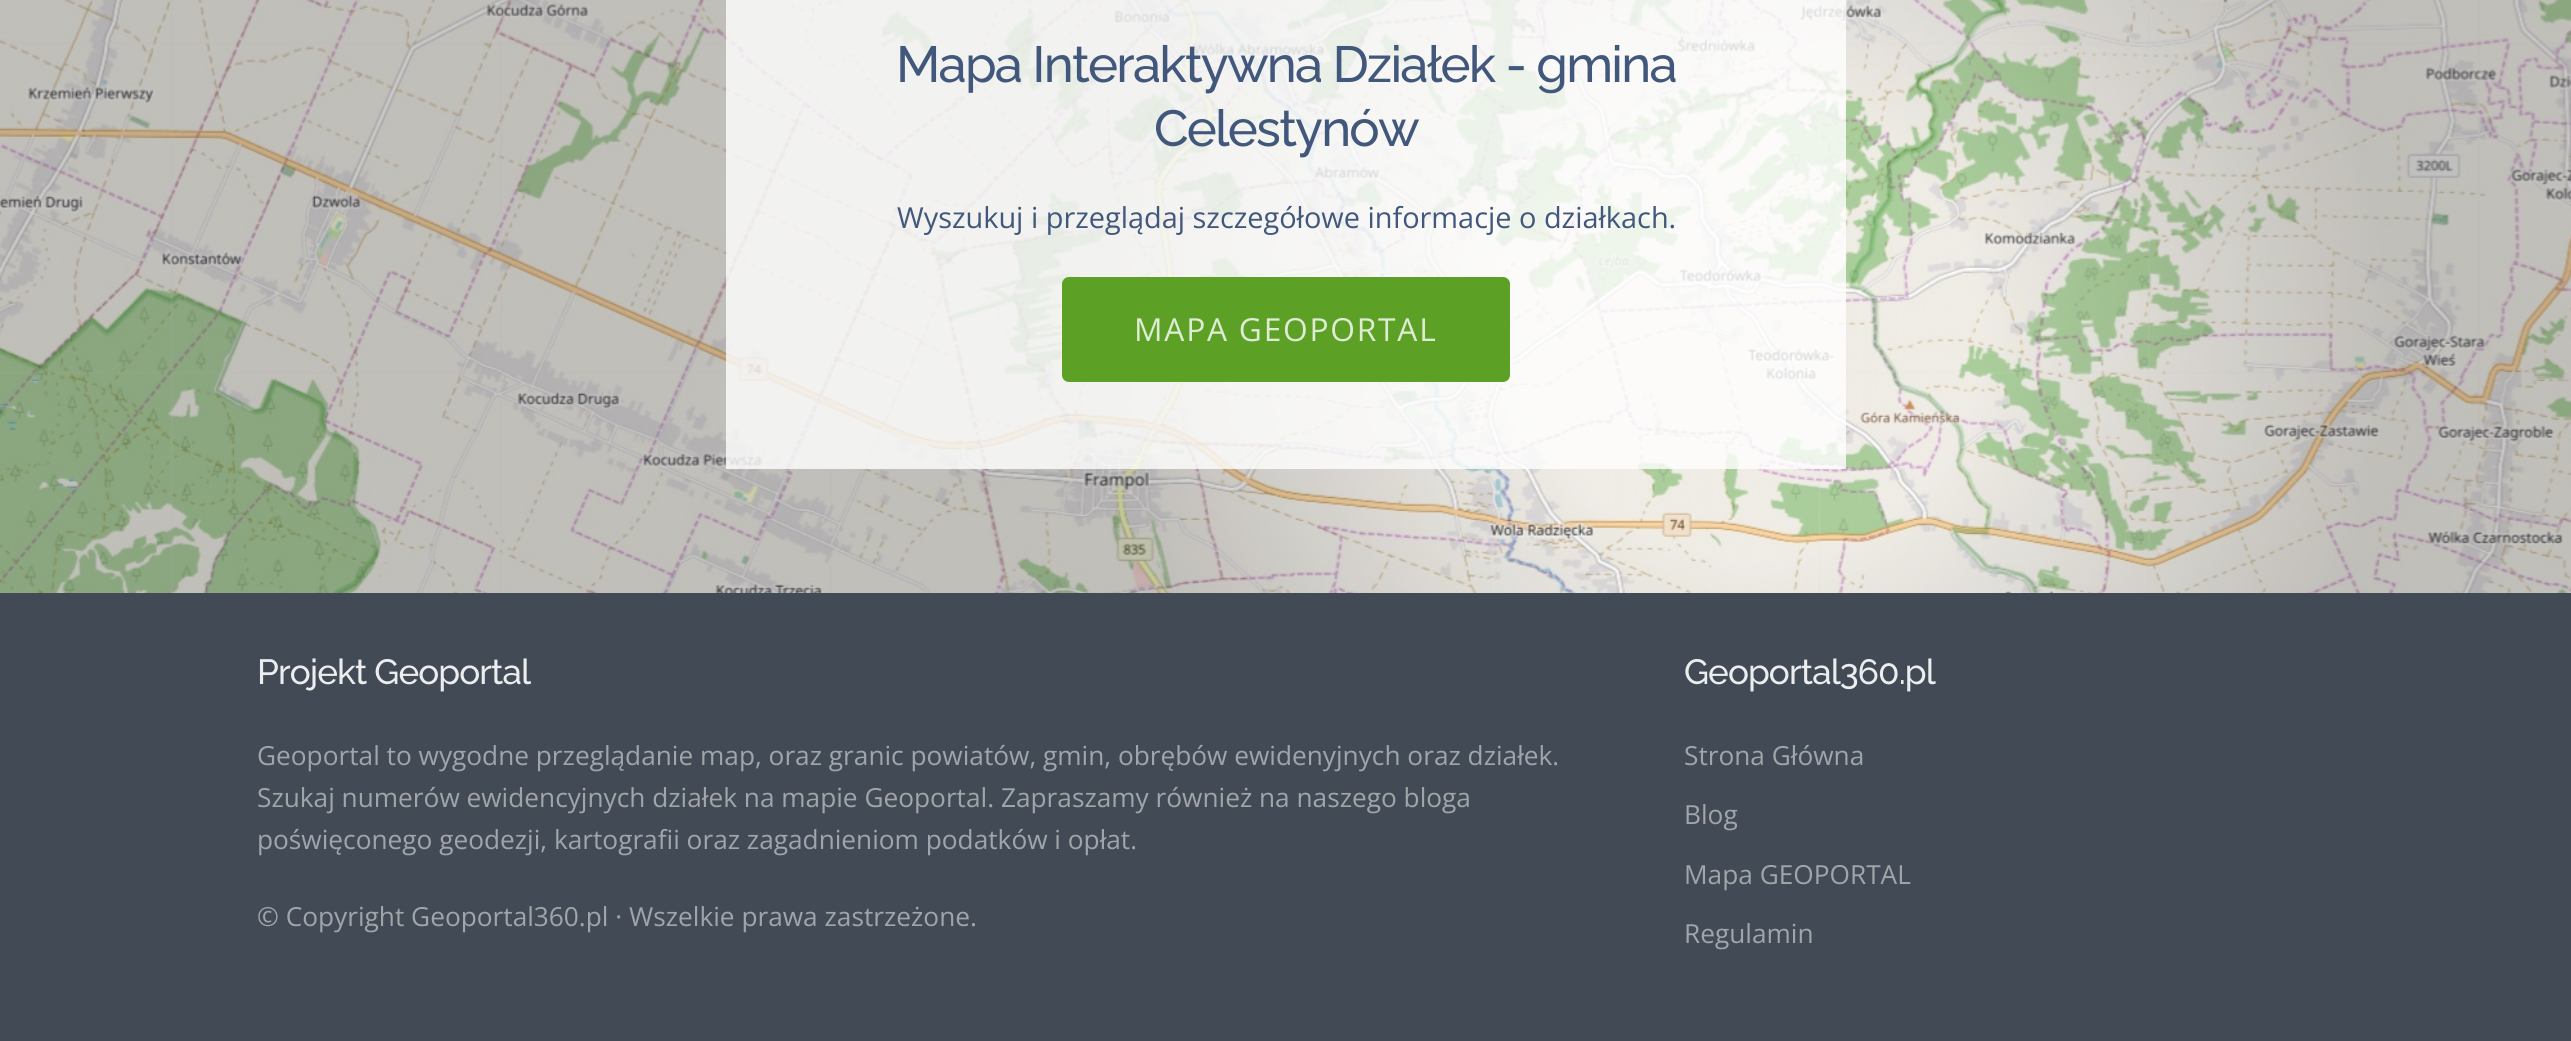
#include <cairo.h>
#include <math.h>
#include <stddef.h>

typedef struct { const char *family; double size; int italic, bold; unsigned color; } style_t;
static cairo_t *ctx;

static void ink(unsigned color) {
    cairo_set_source_rgb(ctx, (color >> 16) / 255.0, (color >> 8 & 255) / 255.0, (color & 255) / 255.0);
}

static void write(double x, double y, const char *s, const style_t *st) {
    cairo_select_font_face(ctx, st->family, st->italic ? CAIRO_FONT_SLANT_ITALIC : CAIRO_FONT_SLANT_NORMAL,
        st->bold ? CAIRO_FONT_WEIGHT_BOLD : CAIRO_FONT_WEIGHT_NORMAL);
    cairo_set_font_size(ctx, st->size);
    ink(st->color);
    cairo_move_to(ctx, x, y);
    cairo_show_text(ctx, s);
}

static void write_spaced(double x, double y, const char *s, double letter, double word) {
    cairo_move_to(ctx, x, y);
    while (*s) {
        char ch[5] = {0};
        int n = 0;
        do ch[n++] = *s++; while ((*s & 0xC0) == 0x80);
        cairo_show_text(ctx, ch);
        cairo_rel_move_to(ctx, letter + word * (*ch == ' '), 0);
    }
}

static void block(double x, double y, double w, double h, unsigned color) {
    ink(color);
    cairo_rectangle(ctx, x, y, w, h);
    cairo_fill(ctx);
}

static void round_path(double x, double y, double w, double h, double r) {
    cairo_new_sub_path(ctx);
    cairo_arc(ctx, x + w - r, y + h - r, r, 0, M_PI / 2);
    cairo_arc(ctx, x + r, y + h - r, r, M_PI / 2, M_PI);
    cairo_arc(ctx, x + r, y + r, r, M_PI, 1.5 * M_PI);
    cairo_arc(ctx, x + w - r, y + r, r, 1.5 * M_PI, 2 * M_PI);
    cairo_close_path(ctx);
}

static void paste(const char *path, double x, double y, double w, double h) {
    cairo_surface_t *image = cairo_image_surface_create_from_png(path);
    cairo_save(ctx);
    cairo_set_source_surface(ctx, image, x, y);
    cairo_rectangle(ctx, x, y, w, h);
    cairo_fill(ctx);
    cairo_restore(ctx);
    cairo_surface_destroy(image);
}

static const style_t s1 = {"Open Sans", 28.9, 0, 0, 0x41577b};
static const style_t s2 = {"Open Sans", 26.25, 0, 0, 0xa1a5aa};

int main(void) {
    cairo_surface_t *surface = cairo_image_surface_create(CAIRO_FORMAT_RGB24, 2571, 1041);
    ctx = cairo_create(surface);
    cairo_font_options_t *options = cairo_font_options_create();
    cairo_font_options_set_hint_metrics(options, CAIRO_HINT_METRICS_OFF);
    cairo_font_options_set_hint_style(options, CAIRO_HINT_STYLE_NONE);
    cairo_set_font_options(ctx, options);
    cairo_set_miter_limit(ctx, 4);
    ink(0xffffff);
    cairo_paint(ctx);
    paste("pic1.png", 0, 0, 2571, 593);
    cairo_set_source_rgba(ctx, 1, 1, 1, 0.8);
    cairo_rectangle(ctx, 726, 0, 1120, 469);
    cairo_fill(ctx);
    cairo_select_font_face(ctx, "Raleway Medium", CAIRO_FONT_SLANT_NORMAL, CAIRO_FONT_WEIGHT_NORMAL);
    cairo_set_font_size(ctx, 50.75);
    ink(0x41577b);
    write_spaced(896, 82, "Mapa Interaktywna Działek - gmina", -1.75, 0);
    write_spaced(1154, 146, "Celestynów", -1.75, 0);
    write(897, 228, "Wyszukuj i przeglądaj szczegółowe informacje o działkach.", &s1);
    ink(0x5da026);
    round_path(1063, 278, 446, 103, 6);
    cairo_fill_preserve(ctx);
    cairo_stroke(ctx);
    cairo_set_font_size(ctx, 31.75);
    ink(0xdfecd4);
    write_spaced(1134, 341, "MAPA GEOPORTAL", 1.75, 0);
    block(0, 593, 2571, 448, 0x424a55);
    cairo_select_font_face(ctx, "Raleway Medium", CAIRO_FONT_SLANT_NORMAL, CAIRO_FONT_WEIGHT_NORMAL);
    cairo_set_font_size(ctx, 35);
    ink(0xecedee);
    write_spaced(257, 684, "Projekt Geoportal", -0.9, 0);
    write(257, 765, "Geoportal to wygodne przeglądanie map, oraz granic powiatów, gmin, obrębów ewidenyjnych oraz działek.", &s2);
    write(257, 807, "Szukaj numerów ewidencyjnych działek na mapie Geoportal. Zapraszamy również na naszego bloga", &s2);
    write(257, 849, "poświęconego geodezji, kartografii oraz zagadnieniom podatków i opłat.", &s2);
    write(257, 926, "© Copyright Geoportal360.pl · Wszelkie prawa zastrzeżone.", &s2);
    cairo_select_font_face(ctx, "Raleway Medium", CAIRO_FONT_SLANT_NORMAL, CAIRO_FONT_WEIGHT_NORMAL);
    cairo_set_font_size(ctx, 35);
    ink(0xecedee);
    write_spaced(1684, 684, "Geoportal360.pl", -0.9, 0);
    write(1684, 765, "Strona Główna", &s2);
    write(1684, 824, "Blog", &s2);
    write(1684, 884, "Mapa GEOPORTAL", &s2);
    write(1684, 943, "Regulamin", &s2);
    cairo_surface_write_to_png(surface, "screenshot.png");
    cairo_font_options_destroy(options);
    cairo_destroy(ctx);
    cairo_surface_destroy(surface);
    return 0;
}
